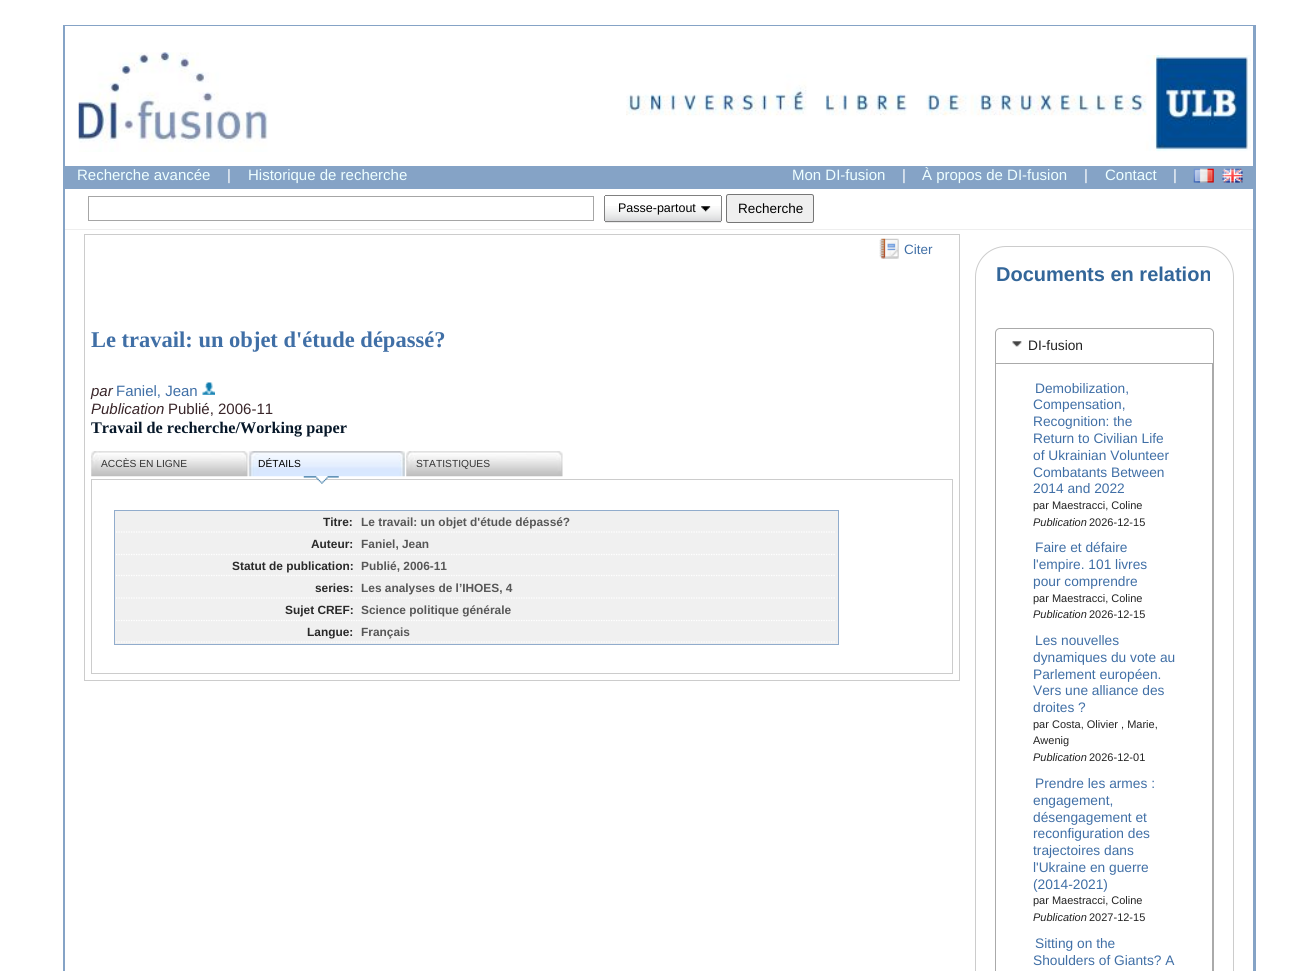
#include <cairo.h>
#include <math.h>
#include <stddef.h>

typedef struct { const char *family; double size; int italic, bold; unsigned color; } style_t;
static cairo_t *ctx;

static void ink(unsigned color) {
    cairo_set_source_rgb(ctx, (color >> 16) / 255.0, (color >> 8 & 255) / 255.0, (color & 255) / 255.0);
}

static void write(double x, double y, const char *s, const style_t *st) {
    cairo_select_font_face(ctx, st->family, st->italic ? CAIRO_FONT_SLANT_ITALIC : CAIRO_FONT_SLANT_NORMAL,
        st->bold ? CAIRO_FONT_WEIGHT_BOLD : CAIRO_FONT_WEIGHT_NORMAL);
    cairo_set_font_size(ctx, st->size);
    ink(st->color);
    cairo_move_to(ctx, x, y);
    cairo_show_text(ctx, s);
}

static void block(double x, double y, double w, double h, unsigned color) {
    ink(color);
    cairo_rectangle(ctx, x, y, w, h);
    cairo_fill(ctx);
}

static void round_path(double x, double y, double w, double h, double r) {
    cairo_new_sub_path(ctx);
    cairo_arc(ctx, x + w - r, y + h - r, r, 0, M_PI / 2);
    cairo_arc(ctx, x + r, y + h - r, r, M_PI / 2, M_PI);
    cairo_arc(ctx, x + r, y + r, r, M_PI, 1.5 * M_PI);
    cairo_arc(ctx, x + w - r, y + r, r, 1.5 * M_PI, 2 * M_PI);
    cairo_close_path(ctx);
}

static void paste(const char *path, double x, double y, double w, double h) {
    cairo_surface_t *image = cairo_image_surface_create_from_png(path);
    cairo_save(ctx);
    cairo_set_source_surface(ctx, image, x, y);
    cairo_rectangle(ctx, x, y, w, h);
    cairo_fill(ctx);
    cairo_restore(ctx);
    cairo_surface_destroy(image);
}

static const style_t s1 = {"Liberation Sans", 15, 0, 0, 0xeeffff};
static const style_t s2 = {"Liberation Sans", 15, 0, 0, 0xffffff};
static const style_t s3 = {"Liberation Sans", 12.5, 0, 0, 0x000000};
static const style_t s4 = {"Liberation Sans", 13.5, 0, 0, 0x000000};
static const style_t s5 = {"Liberation Sans", 13.5, 0, 0, 0x406fa6};
static const style_t s6 = {"Liberation Serif", 22.5, 0, 1, 0x406fa6};
static const style_t s7 = {"Liberation Sans", 15, 1, 0, 0x392529};
static const style_t s8 = {"Liberation Sans", 15, 0, 0, 0x406fa6};
static const style_t s9 = {"Liberation Sans", 15, 0, 0, 0x392529};
static const style_t s10 = {"Liberation Serif", 16.25, 0, 1, 0x071829};
static const style_t s11 = {"Liberation Sans", 10.25, 0, 0, 0x333333};
static const style_t s12 = {"Liberation Sans", 10.25, 0, 0, 0x000000};
static const style_t s13 = {"Liberation Sans", 11.9, 0, 1, 0x292929};
static const style_t s14 = {"Liberation Sans", 11.9, 0, 1, 0x575757};
static const style_t s15 = {"Liberation Sans", 20, 0, 1, 0x336699};
static const style_t s16 = {"Liberation Sans", 13.75, 0, 0, 0x222222};
static const style_t s17 = {"Liberation Sans", 13.75, 0, 0, 0x406fa6};
static const style_t s18 = {"Liberation Sans", 11, 0, 0, 0x222222};
static const style_t s19 = {"Liberation Sans", 11, 1, 0, 0x222222};

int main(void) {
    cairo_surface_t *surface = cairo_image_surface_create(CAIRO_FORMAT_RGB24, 1316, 971);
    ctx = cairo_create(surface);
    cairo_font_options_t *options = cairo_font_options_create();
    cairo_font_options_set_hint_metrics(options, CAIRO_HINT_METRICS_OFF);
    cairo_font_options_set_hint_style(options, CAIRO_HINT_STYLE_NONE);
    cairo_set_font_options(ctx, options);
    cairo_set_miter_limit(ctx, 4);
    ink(0xffffff);
    cairo_paint(ctx);
    block(63, 25, 1193, 946, 0x85a3c6);
    block(65, 26, 1188, 945, 0xffffff);
    paste("pic1.png", 78, 52, 190, 100);
    paste("pic2.png", 626, 55, 625, 97);
    block(65, 166, 1188, 23, 0x85a3c6);
    write(77, 180, "Recherche avancée", &s1);
    write(227, 180, "|", &s2);
    write(248, 180, "Historique de recherche", &s1);
    write(792, 180, "Mon DI-fusion", &s1);
    write(902, 180, "|", &s2);
    write(922, 180, "À propos de DI-fusion", &s1);
    write(1084, 180, "|", &s2);
    write(1105, 180, "Contact", &s1);
    write(1173, 180, "|", &s2);
    paste("pic3.png", 1193, 168, 21, 15);
    paste("pic4.png", 1222, 168, 21, 15);
    cairo_rectangle(ctx, 88.5, 196.5, 505, 24);
    ink(0xa6a6a6);
    cairo_set_line_width(ctx, 1);
    cairo_stroke(ctx);
    paste("pic5.png", 605, 206, 117, 17);
    block(605, 195, 116, 1, 0x808080);
    block(605, 221, 116, 1, 0x808080);
    block(721, 196, 1, 25, 0x808080);
    block(604, 196, 1, 25, 0x808080);
    paste("pic6.png", 701, 206, 10, 6);
    write(618, 212, "Passe-partout", &s3);
    ink(0xefefef);
    round_path(726.5, 194.5, 87, 28, 2);
    cairo_fill_preserve(ctx);
    ink(0x767676);
    cairo_stroke(ctx);
    write(738, 213, "Recherche", &s4);
    block(65, 229, 1188, 1, 0xeeeeee);
    cairo_rectangle(ctx, 84.5, 234.5, 875, 446);
    ink(0xcccccc);
    cairo_stroke(ctx);
    paste("pic7.png", 879, 238, 20, 21);
    write(904, 254, "Citer", &s5);
    write(91, 347, "Le travail: un objet d'étude dépassé?", &s6);
    write(91, 396, "par", &s7);
    write(116, 396, "Faniel, Jean", &s8);
    paste("pic8.png", 202, 382, 13, 13);
    write(91, 414, "Publication", &s7);
    write(168, 414, "Publié, 2006-11", &s9);
    write(91, 433, "Travail de recherche/Working paper", &s10);
    paste("pic9.png", 91, 451, 157, 26);
    write(101, 467, "ACCÈS EN LIGNE", &s11);
    paste("pic10.png", 248, 451, 157, 26);
    write(258, 467, "DÉTAILS", &s12);
    cairo_rectangle(ctx, 91.5, 479.5, 861, 194);
    ink(0xcccccc);
    cairo_stroke(ctx);
    paste("pic11.png", 303, 476, 36, 8);
    paste("pic9.png", 406, 451, 157, 26);
    write(416, 467, "STATISTIQUES", &s11);
    block(115, 511, 723, 133, 0xf0f0f0);
    block(114, 510, 725, 1, 0x91accc);
    block(838, 510, 1, 135, 0x91accc);
    block(114, 644, 725, 1, 0x91accc);
    block(114, 510, 1, 135, 0x91accc);
    cairo_new_path(ctx);
    cairo_move_to(ctx, 116, 532);
    cairo_line_to(ctx, 836, 532);
    ink(0xffffff);
    cairo_set_line_width(ctx, 1.2);
    cairo_set_dash(ctx, (double[]){1.25, 1.25}, 2, 0);
    cairo_stroke(ctx);
    write(323, 526, "Titre:", &s13);
    write(361, 526, "Le travail: un objet d'étude dépassé?", &s14);
    cairo_new_path(ctx);
    cairo_move_to(ctx, 116, 554.5);
    cairo_line_to(ctx, 836, 554.5);
    ink(0xffffff);
    cairo_stroke(ctx);
    write(311, 548, "Auteur:", &s13);
    write(361, 548, "Faniel, Jean", &s14);
    cairo_new_path(ctx);
    cairo_move_to(ctx, 116, 575.5);
    cairo_line_to(ctx, 836, 575.5);
    ink(0xffffff);
    cairo_stroke(ctx);
    write(232, 570, "Statut de publication:", &s13);
    write(361, 570, "Publié, 2006-11", &s14);
    cairo_new_path(ctx);
    cairo_move_to(ctx, 116, 598);
    cairo_line_to(ctx, 836, 598);
    ink(0xffffff);
    cairo_stroke(ctx);
    write(315, 592, "series:", &s13);
    write(361, 592, "Les analyses de l’IHOES, 4", &s14);
    cairo_new_path(ctx);
    cairo_move_to(ctx, 116, 620.5);
    cairo_line_to(ctx, 836, 620.5);
    ink(0xffffff);
    cairo_stroke(ctx);
    write(285, 614, "Sujet CREF:", &s13);
    write(361, 614, "Science politique générale", &s14);
    cairo_new_path(ctx);
    cairo_move_to(ctx, 116, 642);
    cairo_line_to(ctx, 836, 642);
    ink(0xffffff);
    cairo_stroke(ctx);
    write(307, 636, "Langue:", &s13);
    write(361, 636, "Français", &s14);
    round_path(975.5, 246.5, 258, 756, 30.5);
    ink(0xcccccc);
    cairo_set_line_width(ctx, 1);
    cairo_set_dash(ctx, NULL, 0, 0);
    cairo_stroke(ctx);
    write(996, 281, "Documents en relation", &s15);
    cairo_new_path(ctx);
    cairo_move_to(ctx, 1000, 328.5);
    cairo_line_to(ctx, 1209, 328.5);
    cairo_curve_to(ctx, 1211.5, 328.5, 1213.5, 330.5, 1213.5, 333);
    cairo_line_to(ctx, 1213.5, 363.5);
    cairo_line_to(ctx, 995.5, 363.5);
    cairo_line_to(ctx, 995.5, 333);
    cairo_curve_to(ctx, 995.5, 330.5, 997.5, 328.5, 1000, 328.5);
    cairo_close_path(ctx);
    ink(0xaaaaaa);
    cairo_stroke(ctx);
    paste("pic12.png", 1012, 341, 10, 6);
    write(1028, 350, "DI-fusion", &s16);
    ink(0xaaaaaa);
    cairo_set_fill_rule(ctx, CAIRO_FILL_RULE_EVEN_ODD);
    cairo_new_path(ctx);
    cairo_move_to(ctx, 995, 364);
    cairo_line_to(ctx, 1214, 364);
    cairo_line_to(ctx, 1214, 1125);
    cairo_curve_to(ctx, 1214, 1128, 1212, 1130, 1209, 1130);
    cairo_line_to(ctx, 1000, 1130);
    cairo_curve_to(ctx, 997, 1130, 995, 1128, 995, 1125);
    cairo_close_path(ctx);
    cairo_move_to(ctx, 996, 364);
    cairo_line_to(ctx, 1212, 364);
    cairo_line_to(ctx, 1212, 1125);
    cairo_curve_to(ctx, 1212, 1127, 1211, 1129, 1209, 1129);
    cairo_line_to(ctx, 1000, 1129);
    cairo_curve_to(ctx, 998, 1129, 996, 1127, 996, 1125);
    cairo_close_path(ctx);
    cairo_fill(ctx);
    write(1035, 393, "Demobilization,", &s17);
    write(1033, 409, "Compensation,", &s17);
    write(1033, 426, "Recognition: the", &s17);
    write(1033, 443, "Return to Civilian Life", &s17);
    write(1033, 460, "of Ukrainian Volunteer", &s17);
    write(1033, 477, "Combatants Between", &s17);
    write(1033, 493, "2014 and 2022", &s17);
    write(1033, 509, "par Maestracci, Coline", &s18);
    write(1033, 526, "Publication", &s19);
    write(1089, 526, "2026-12-15", &s18);
    write(1035, 552, "Faire et défaire", &s17);
    write(1033, 569, "l'empire. 101 livres", &s17);
    write(1033, 586, "pour comprendre", &s17);
    write(1033, 602, "par Maestracci, Coline", &s18);
    write(1033, 618, "Publication", &s19);
    write(1089, 618, "2026-12-15", &s18);
    write(1035, 645, "Les nouvelles", &s17);
    write(1033, 662, "dynamiques du vote au", &s17);
    write(1033, 679, "Parlement européen.", &s17);
    write(1033, 695, "Vers une alliance des", &s17);
    write(1033, 712, "droites ?", &s17);
    write(1033, 728, "par Costa, Olivier , Marie,", &s18);
    write(1033, 744, "Awenig", &s18);
    write(1033, 761, "Publication", &s19);
    write(1089, 761, "2026-12-01", &s18);
    write(1035, 788, "Prendre les armes :", &s17);
    write(1033, 805, "engagement,", &s17);
    write(1033, 822, "désengagement et", &s17);
    write(1033, 838, "reconfiguration des", &s17);
    write(1033, 855, "trajectoires dans", &s17);
    write(1033, 872, "l'Ukraine en guerre", &s17);
    write(1033, 889, "(2014-2021)", &s17);
    write(1033, 904, "par Maestracci, Coline", &s18);
    write(1033, 921, "Publication", &s19);
    write(1089, 921, "2027-12-15", &s18);
    write(1035, 948, "Sitting on the", &s17);
    write(1033, 965, "Shoulders of Giants? A", &s17);
    cairo_surface_write_to_png(surface, "screenshot.png");
    cairo_font_options_destroy(options);
    cairo_destroy(ctx);
    cairo_surface_destroy(surface);
    return 0;
}
